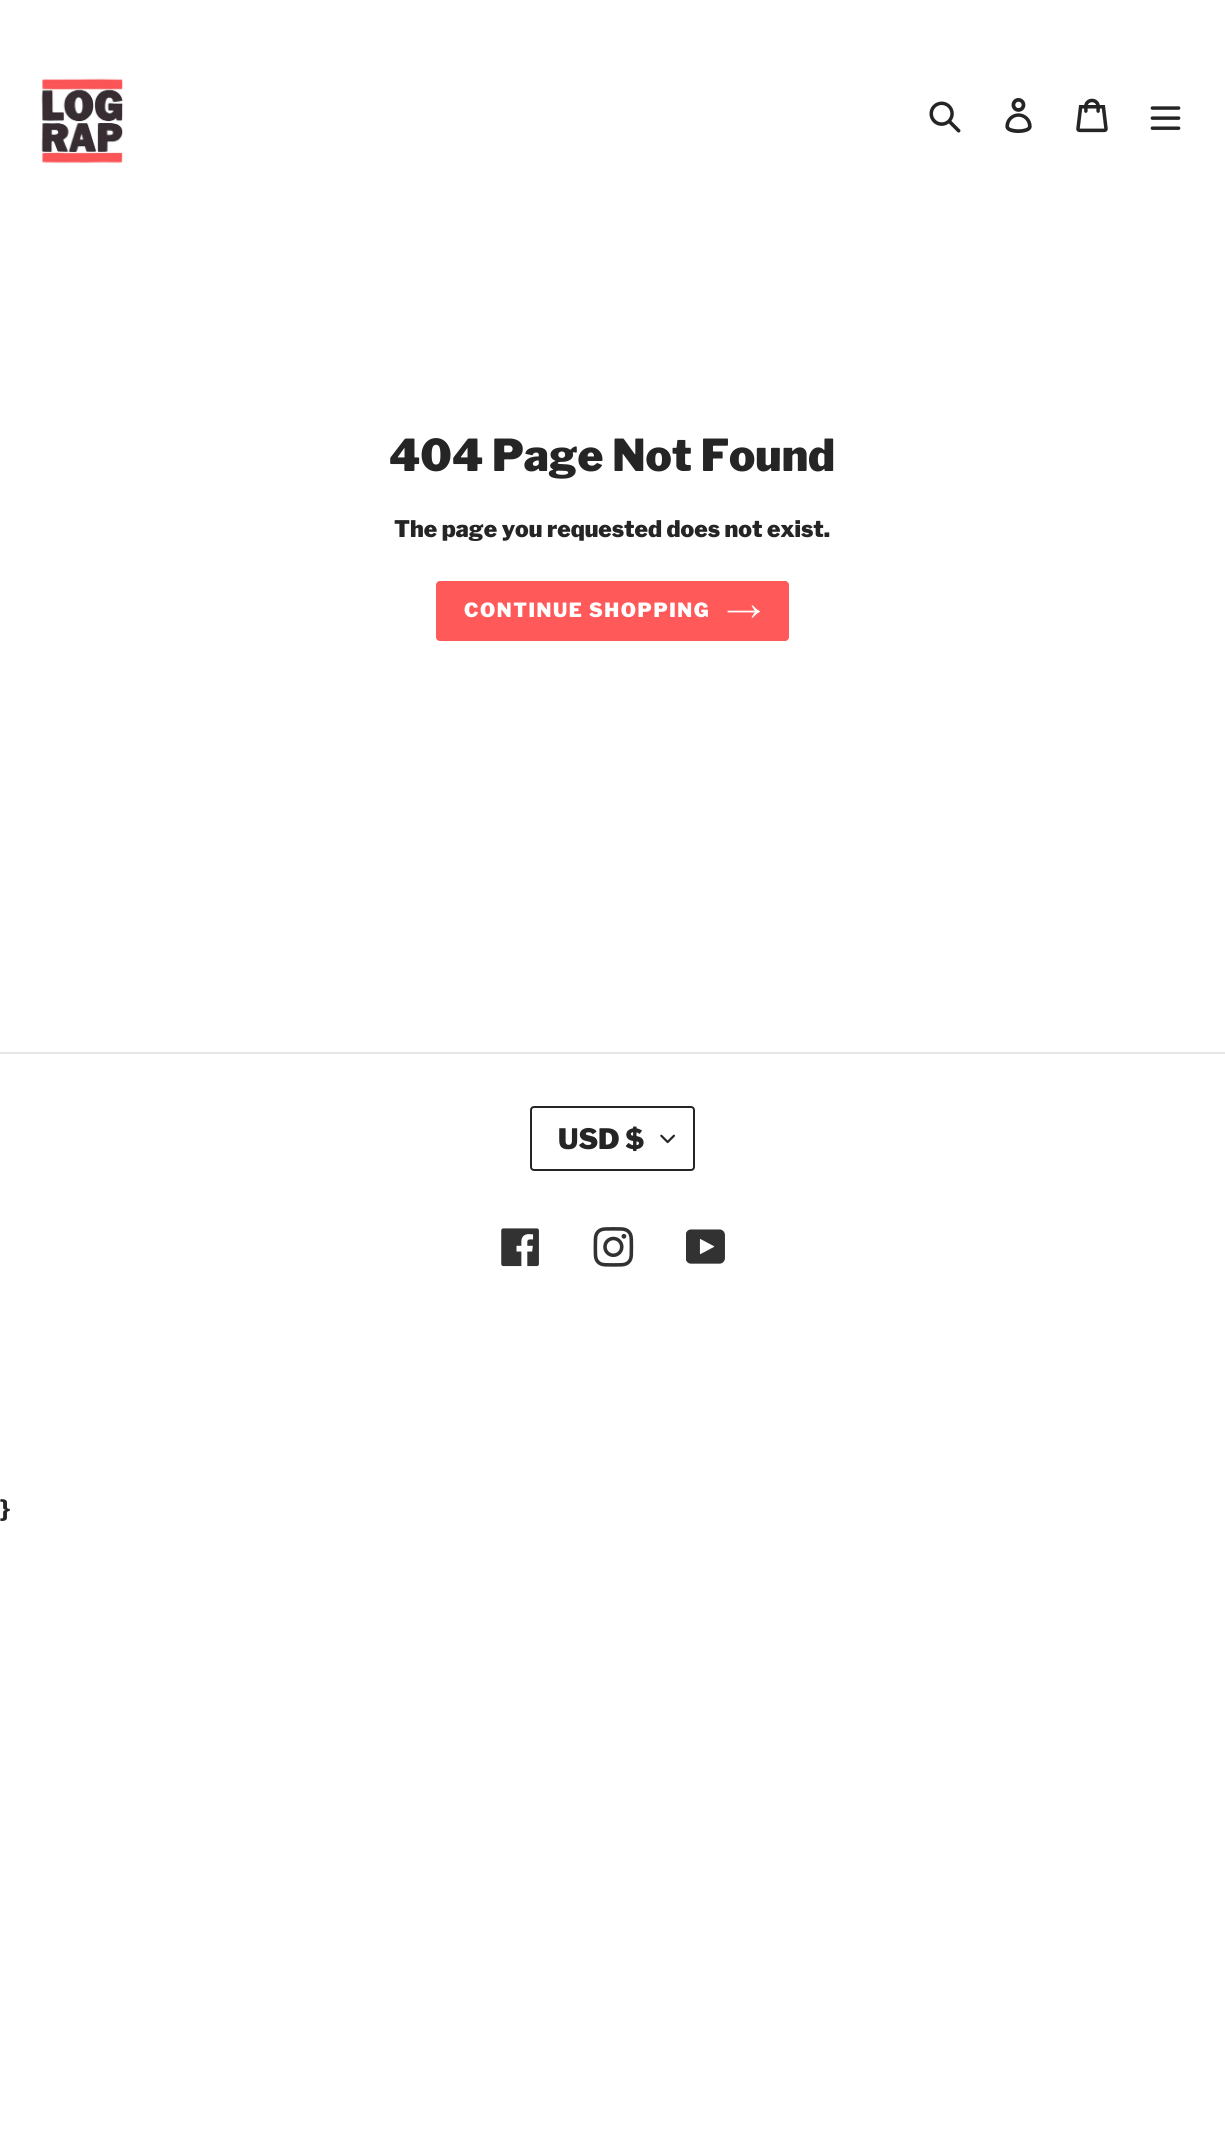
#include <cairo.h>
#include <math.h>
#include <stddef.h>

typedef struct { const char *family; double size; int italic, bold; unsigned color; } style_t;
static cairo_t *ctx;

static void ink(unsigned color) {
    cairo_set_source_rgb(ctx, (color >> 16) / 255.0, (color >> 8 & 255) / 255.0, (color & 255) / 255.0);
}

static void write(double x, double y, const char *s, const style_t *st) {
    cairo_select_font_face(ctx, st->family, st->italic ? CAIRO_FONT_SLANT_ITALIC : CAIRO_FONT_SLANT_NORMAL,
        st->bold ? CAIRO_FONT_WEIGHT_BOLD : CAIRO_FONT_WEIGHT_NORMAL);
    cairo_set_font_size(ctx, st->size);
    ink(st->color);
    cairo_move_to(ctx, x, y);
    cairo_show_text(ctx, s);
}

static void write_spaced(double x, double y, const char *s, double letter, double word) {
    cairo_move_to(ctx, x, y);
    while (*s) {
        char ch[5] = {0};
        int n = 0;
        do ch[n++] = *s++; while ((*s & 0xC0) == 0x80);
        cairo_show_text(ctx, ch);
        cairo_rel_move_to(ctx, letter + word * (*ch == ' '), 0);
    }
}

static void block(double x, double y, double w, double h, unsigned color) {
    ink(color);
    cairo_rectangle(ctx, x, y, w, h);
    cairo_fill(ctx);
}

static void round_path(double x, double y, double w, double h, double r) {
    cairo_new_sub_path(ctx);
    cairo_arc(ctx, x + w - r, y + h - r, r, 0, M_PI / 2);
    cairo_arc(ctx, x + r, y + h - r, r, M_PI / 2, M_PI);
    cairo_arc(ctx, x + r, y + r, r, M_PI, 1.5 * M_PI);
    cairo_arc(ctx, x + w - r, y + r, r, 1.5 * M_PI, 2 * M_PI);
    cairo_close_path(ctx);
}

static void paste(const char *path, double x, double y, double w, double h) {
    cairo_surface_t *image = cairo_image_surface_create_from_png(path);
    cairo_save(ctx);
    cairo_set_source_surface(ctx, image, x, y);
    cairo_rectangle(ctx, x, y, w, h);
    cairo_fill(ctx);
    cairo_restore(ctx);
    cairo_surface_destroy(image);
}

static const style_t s1 = {"Libre Franklin Black", 43.75, 0, 0, 0x252525};
static const style_t s2 = {"Libre Franklin Black", 22.75, 0, 0, 0x252525};
static const style_t s3 = {"Libre Franklin Black", 28, 0, 0, 0x252525};
static const style_t s4 = {"Libre Franklin Black", 24, 0, 0, 0x252525};

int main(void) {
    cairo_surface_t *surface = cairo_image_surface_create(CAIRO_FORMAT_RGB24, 1225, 2142);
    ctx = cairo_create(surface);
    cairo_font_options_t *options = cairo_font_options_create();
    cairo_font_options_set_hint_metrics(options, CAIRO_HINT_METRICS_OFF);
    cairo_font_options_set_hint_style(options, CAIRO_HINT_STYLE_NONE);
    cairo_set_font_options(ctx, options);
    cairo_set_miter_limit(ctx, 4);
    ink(0xffffff);
    cairo_paint(ctx);
    paste("pic1.png", 41, 78, 83, 86);
    paste("pic2.png", 929, 101, 32, 32);
    paste("pic3.png", 1005, 98, 27, 35);
    paste("pic4.png", 1076, 98, 32, 35);
    paste("pic5.png", 1150, 106, 31, 24);
    write(389, 471, "404 Page Not Found", &s1);
    write(394, 537, "The page you requested does not exist.", &s2);
    ink(0xff5959);
    round_path(436, 581, 353, 60, 4);
    cairo_fill(ctx);
    cairo_set_font_size(ctx, 19.5);
    ink(0xffffff);
    write_spaced(464, 617, "CONTINUE SHOPPING", 1.6, 0);
    paste("pic6.png", 727, 605, 33, 13);
    block(0, 1052, 1225, 2, 0xe6e6e6);
    paste("pic7.png", 660, 1134, 15, 10);
    round_path(531, 1107, 163, 63, 3);
    ink(0x252525);
    cairo_stroke(ctx);
    write(558, 1149, "USD $", &s3);
    paste("pic8.png", 501, 1228, 38, 39);
    paste("pic9.png", 593, 1227, 41, 40);
    paste("pic10.png", 686, 1229, 39, 35);
    write(0, 1517, "}", &s4);
    cairo_surface_write_to_png(surface, "screenshot.png");
    cairo_font_options_destroy(options);
    cairo_destroy(ctx);
    cairo_surface_destroy(surface);
    return 0;
}
